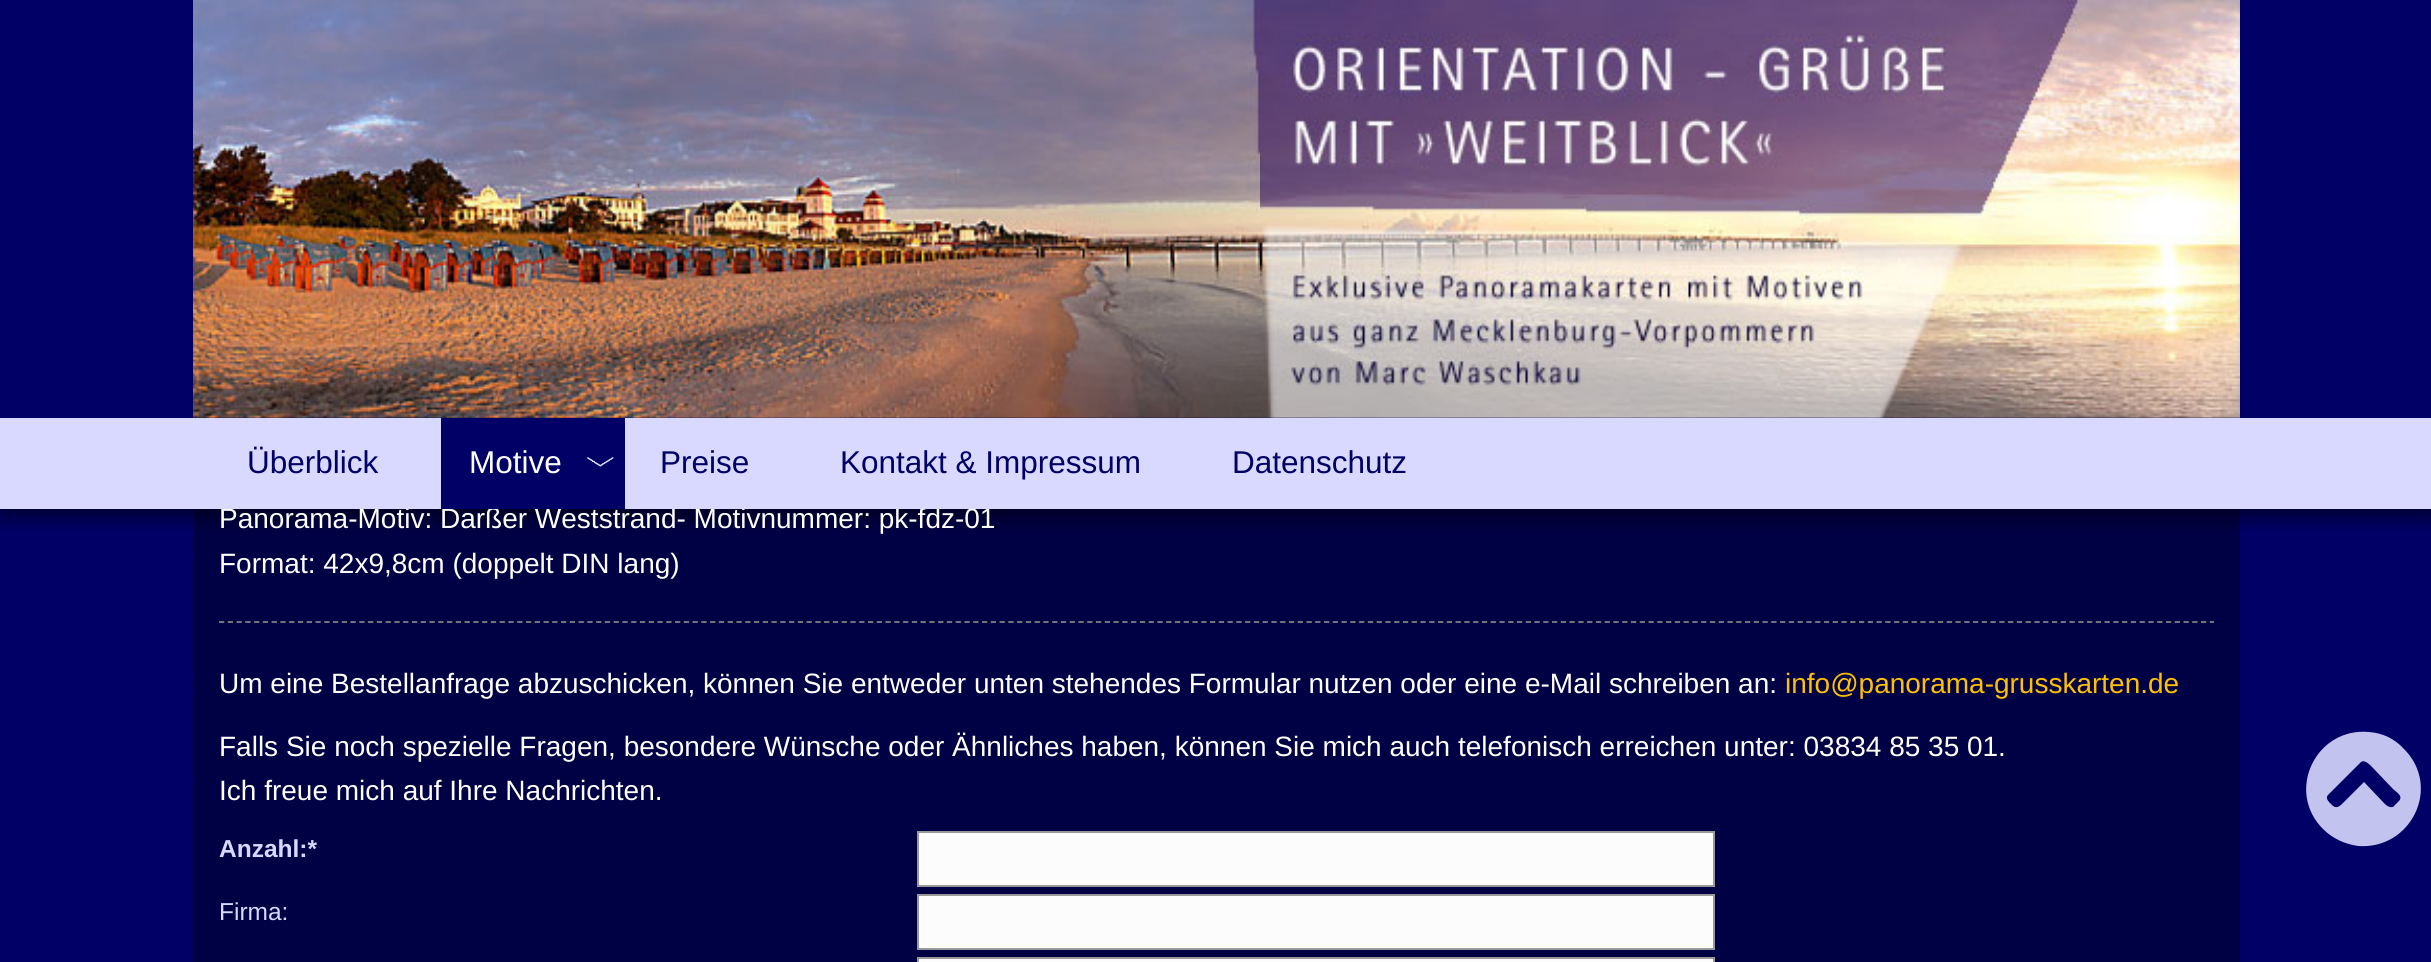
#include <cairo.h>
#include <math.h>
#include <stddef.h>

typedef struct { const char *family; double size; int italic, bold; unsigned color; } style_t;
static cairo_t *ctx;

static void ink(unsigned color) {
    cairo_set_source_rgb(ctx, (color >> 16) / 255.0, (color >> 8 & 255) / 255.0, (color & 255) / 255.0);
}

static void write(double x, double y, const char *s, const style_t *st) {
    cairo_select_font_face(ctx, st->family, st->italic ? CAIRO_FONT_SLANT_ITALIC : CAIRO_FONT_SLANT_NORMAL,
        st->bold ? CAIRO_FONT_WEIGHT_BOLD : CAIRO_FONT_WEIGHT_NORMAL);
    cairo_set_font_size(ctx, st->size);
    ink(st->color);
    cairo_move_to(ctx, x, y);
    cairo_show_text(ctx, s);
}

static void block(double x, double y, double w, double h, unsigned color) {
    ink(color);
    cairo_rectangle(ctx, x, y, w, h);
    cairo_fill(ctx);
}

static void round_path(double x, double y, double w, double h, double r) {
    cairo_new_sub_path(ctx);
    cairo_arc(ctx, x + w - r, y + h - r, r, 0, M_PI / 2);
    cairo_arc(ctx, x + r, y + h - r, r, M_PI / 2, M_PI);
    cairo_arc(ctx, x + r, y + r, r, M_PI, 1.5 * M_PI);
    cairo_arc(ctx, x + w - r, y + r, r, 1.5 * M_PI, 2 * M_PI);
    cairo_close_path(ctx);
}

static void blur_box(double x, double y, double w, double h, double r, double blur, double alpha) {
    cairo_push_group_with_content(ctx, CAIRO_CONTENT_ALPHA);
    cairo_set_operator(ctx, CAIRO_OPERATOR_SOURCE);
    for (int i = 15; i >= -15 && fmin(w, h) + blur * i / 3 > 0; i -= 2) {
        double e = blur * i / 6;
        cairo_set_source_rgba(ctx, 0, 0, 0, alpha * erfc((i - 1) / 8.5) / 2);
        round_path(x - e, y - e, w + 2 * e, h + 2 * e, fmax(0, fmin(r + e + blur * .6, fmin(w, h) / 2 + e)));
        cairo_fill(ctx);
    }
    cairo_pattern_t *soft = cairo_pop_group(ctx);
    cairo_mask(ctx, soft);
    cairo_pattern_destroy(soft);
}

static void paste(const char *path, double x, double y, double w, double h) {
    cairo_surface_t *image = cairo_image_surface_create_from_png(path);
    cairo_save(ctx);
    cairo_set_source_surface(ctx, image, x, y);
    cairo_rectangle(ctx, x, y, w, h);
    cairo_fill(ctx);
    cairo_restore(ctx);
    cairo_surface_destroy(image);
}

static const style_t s1 = {"Liberation Sans", 28, 0, 0, 0xffffff};
static const style_t s2 = {"Liberation Sans", 31.5, 0, 0, 0x000066};
static const style_t s3 = {"Liberation Sans", 31.5, 0, 0, 0xffffff};
static const style_t s4 = {"Liberation Sans", 28, 0, 0, 0xffc000};
static const style_t s5 = {"Liberation Sans", 24.5, 0, 1, 0xd9d9ff};
static const style_t s6 = {"Liberation Sans", 24.5, 0, 0, 0xd9d9ff};

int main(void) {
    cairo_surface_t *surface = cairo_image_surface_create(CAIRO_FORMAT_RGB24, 2431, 962);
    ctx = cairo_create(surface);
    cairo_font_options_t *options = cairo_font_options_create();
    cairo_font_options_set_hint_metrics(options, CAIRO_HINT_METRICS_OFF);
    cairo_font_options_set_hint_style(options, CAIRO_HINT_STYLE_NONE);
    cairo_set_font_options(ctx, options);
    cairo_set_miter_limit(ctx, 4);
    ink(0x000066);
    cairo_paint(ctx);
    block(193, 417, 2047, 545, 0x000044);
    cairo_rectangle(ctx, 1663.5, 375.5, 497, 54);
    cairo_set_line_width(ctx, 9);
    cairo_stroke(ctx);
    paste("pic1.png", 193, 0, 2047, 418);
    ink(0x000000);
    blur_box(0, 432, 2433, 91, 0, 7, 0.1);
    blur_box(0, 432, 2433, 91, 0, 7, 0.1);
    blur_box(0, 432, 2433, 91, 0, 3.5, 0.1);
    blur_box(0, 425, 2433, 91, 0, 2, 0.1);
    blur_box(0, 422, 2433, 91, 0, 1, 0.1);
    write(219, 528, "Panorama-Motiv: Darßer Weststrand- Motivnummer: pk-fdz-01", &s1);
    block(0, 418, 2431, 91, 0xd9d9ff);
    write(247, 473, "Überblick", &s2);
    block(441, 418, 184, 91, 0x000066);
    paste("pic2.png", 587, 457, 27, 10);
    write(469, 473, "Motive", &s3);
    write(660, 473, "Preise", &s2);
    write(840, 473, "Kontakt & Impressum", &s2);
    write(1232, 473, "Datenschutz", &s2);
    write(219, 573, "Format: 42x9,8cm (doppelt DIN lang)", &s1);
    cairo_new_path(ctx);
    cairo_move_to(ctx, 219, 622);
    cairo_line_to(ctx, 2214, 622);
    ink(0x808080);
    cairo_set_line_width(ctx, 1.8);
    cairo_set_dash(ctx, (double[]){5.25, 3.52}, 2, 0);
    cairo_stroke(ctx);
    write(219, 693, "Um eine Bestellanfrage abzuschicken, können Sie entweder unten stehendes Formular nutzen oder eine e-Mail schreiben an:", &s1);
    write(1785, 693, "info@panorama-grusskarten.de", &s4);
    write(219, 756, "Falls Sie noch spezielle Fragen, besondere Wünsche oder Ähnliches haben, können Sie mich auch telefonisch erreichen unter: 03834 85 35 01.", &s1);
    write(219, 800, "Ich freue mich auf Ihre Nachrichten.", &s1);
    write(219, 857, "Anzahl:*", &s5);
    ink(0xfcfcfc);
    cairo_rectangle(ctx, 918, 832, 796, 54);
    cairo_fill_preserve(ctx);
    ink(0x999999);
    cairo_set_line_width(ctx, 2);
    cairo_set_dash(ctx, NULL, 0, 0);
    cairo_stroke(ctx);
    write(219, 920, "Firma:", &s6);
    ink(0xfcfcfc);
    cairo_rectangle(ctx, 918, 895, 796, 54);
    cairo_fill_preserve(ctx);
    ink(0x999999);
    cairo_stroke(ctx);
    ink(0xfcfcfc);
    cairo_rectangle(ctx, 918, 958, 796, 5);
    cairo_fill_preserve(ctx);
    ink(0x999999);
    cairo_stroke(ctx);
    ink(0xc3c3f0);
    cairo_new_path(ctx);
    cairo_move_to(ctx, 2323, 829);
    cairo_curve_to(ctx, 2285, 791, 2316, 727, 2369, 732);
    cairo_curve_to(ctx, 2383, 733, 2395, 739, 2404, 749);
    cairo_curve_to(ctx, 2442, 787, 2411, 850, 2358, 846);
    cairo_curve_to(ctx, 2345, 844, 2333, 839, 2323, 829);
    cairo_close_path(ctx);
    cairo_move_to(ctx, 2360, 763);
    cairo_line_to(ctx, 2329, 794);
    cairo_curve_to(ctx, 2324, 798, 2329, 802, 2332, 805);
    cairo_curve_to(ctx, 2337, 810, 2341, 805, 2344, 802);
    cairo_line_to(ctx, 2364, 782);
    cairo_line_to(ctx, 2383, 802);
    cairo_curve_to(ctx, 2385, 804, 2388, 808, 2393, 807);
    cairo_line_to(ctx, 2397, 803);
    cairo_curve_to(ctx, 2404, 797, 2399, 794, 2393, 789);
    cairo_line_to(ctx, 2373, 768);
    cairo_curve_to(ctx, 2370, 765, 2364, 758, 2360, 763);
    cairo_close_path(ctx);
    cairo_fill(ctx);
    cairo_surface_write_to_png(surface, "screenshot.png");
    cairo_font_options_destroy(options);
    cairo_destroy(ctx);
    cairo_surface_destroy(surface);
    return 0;
}
